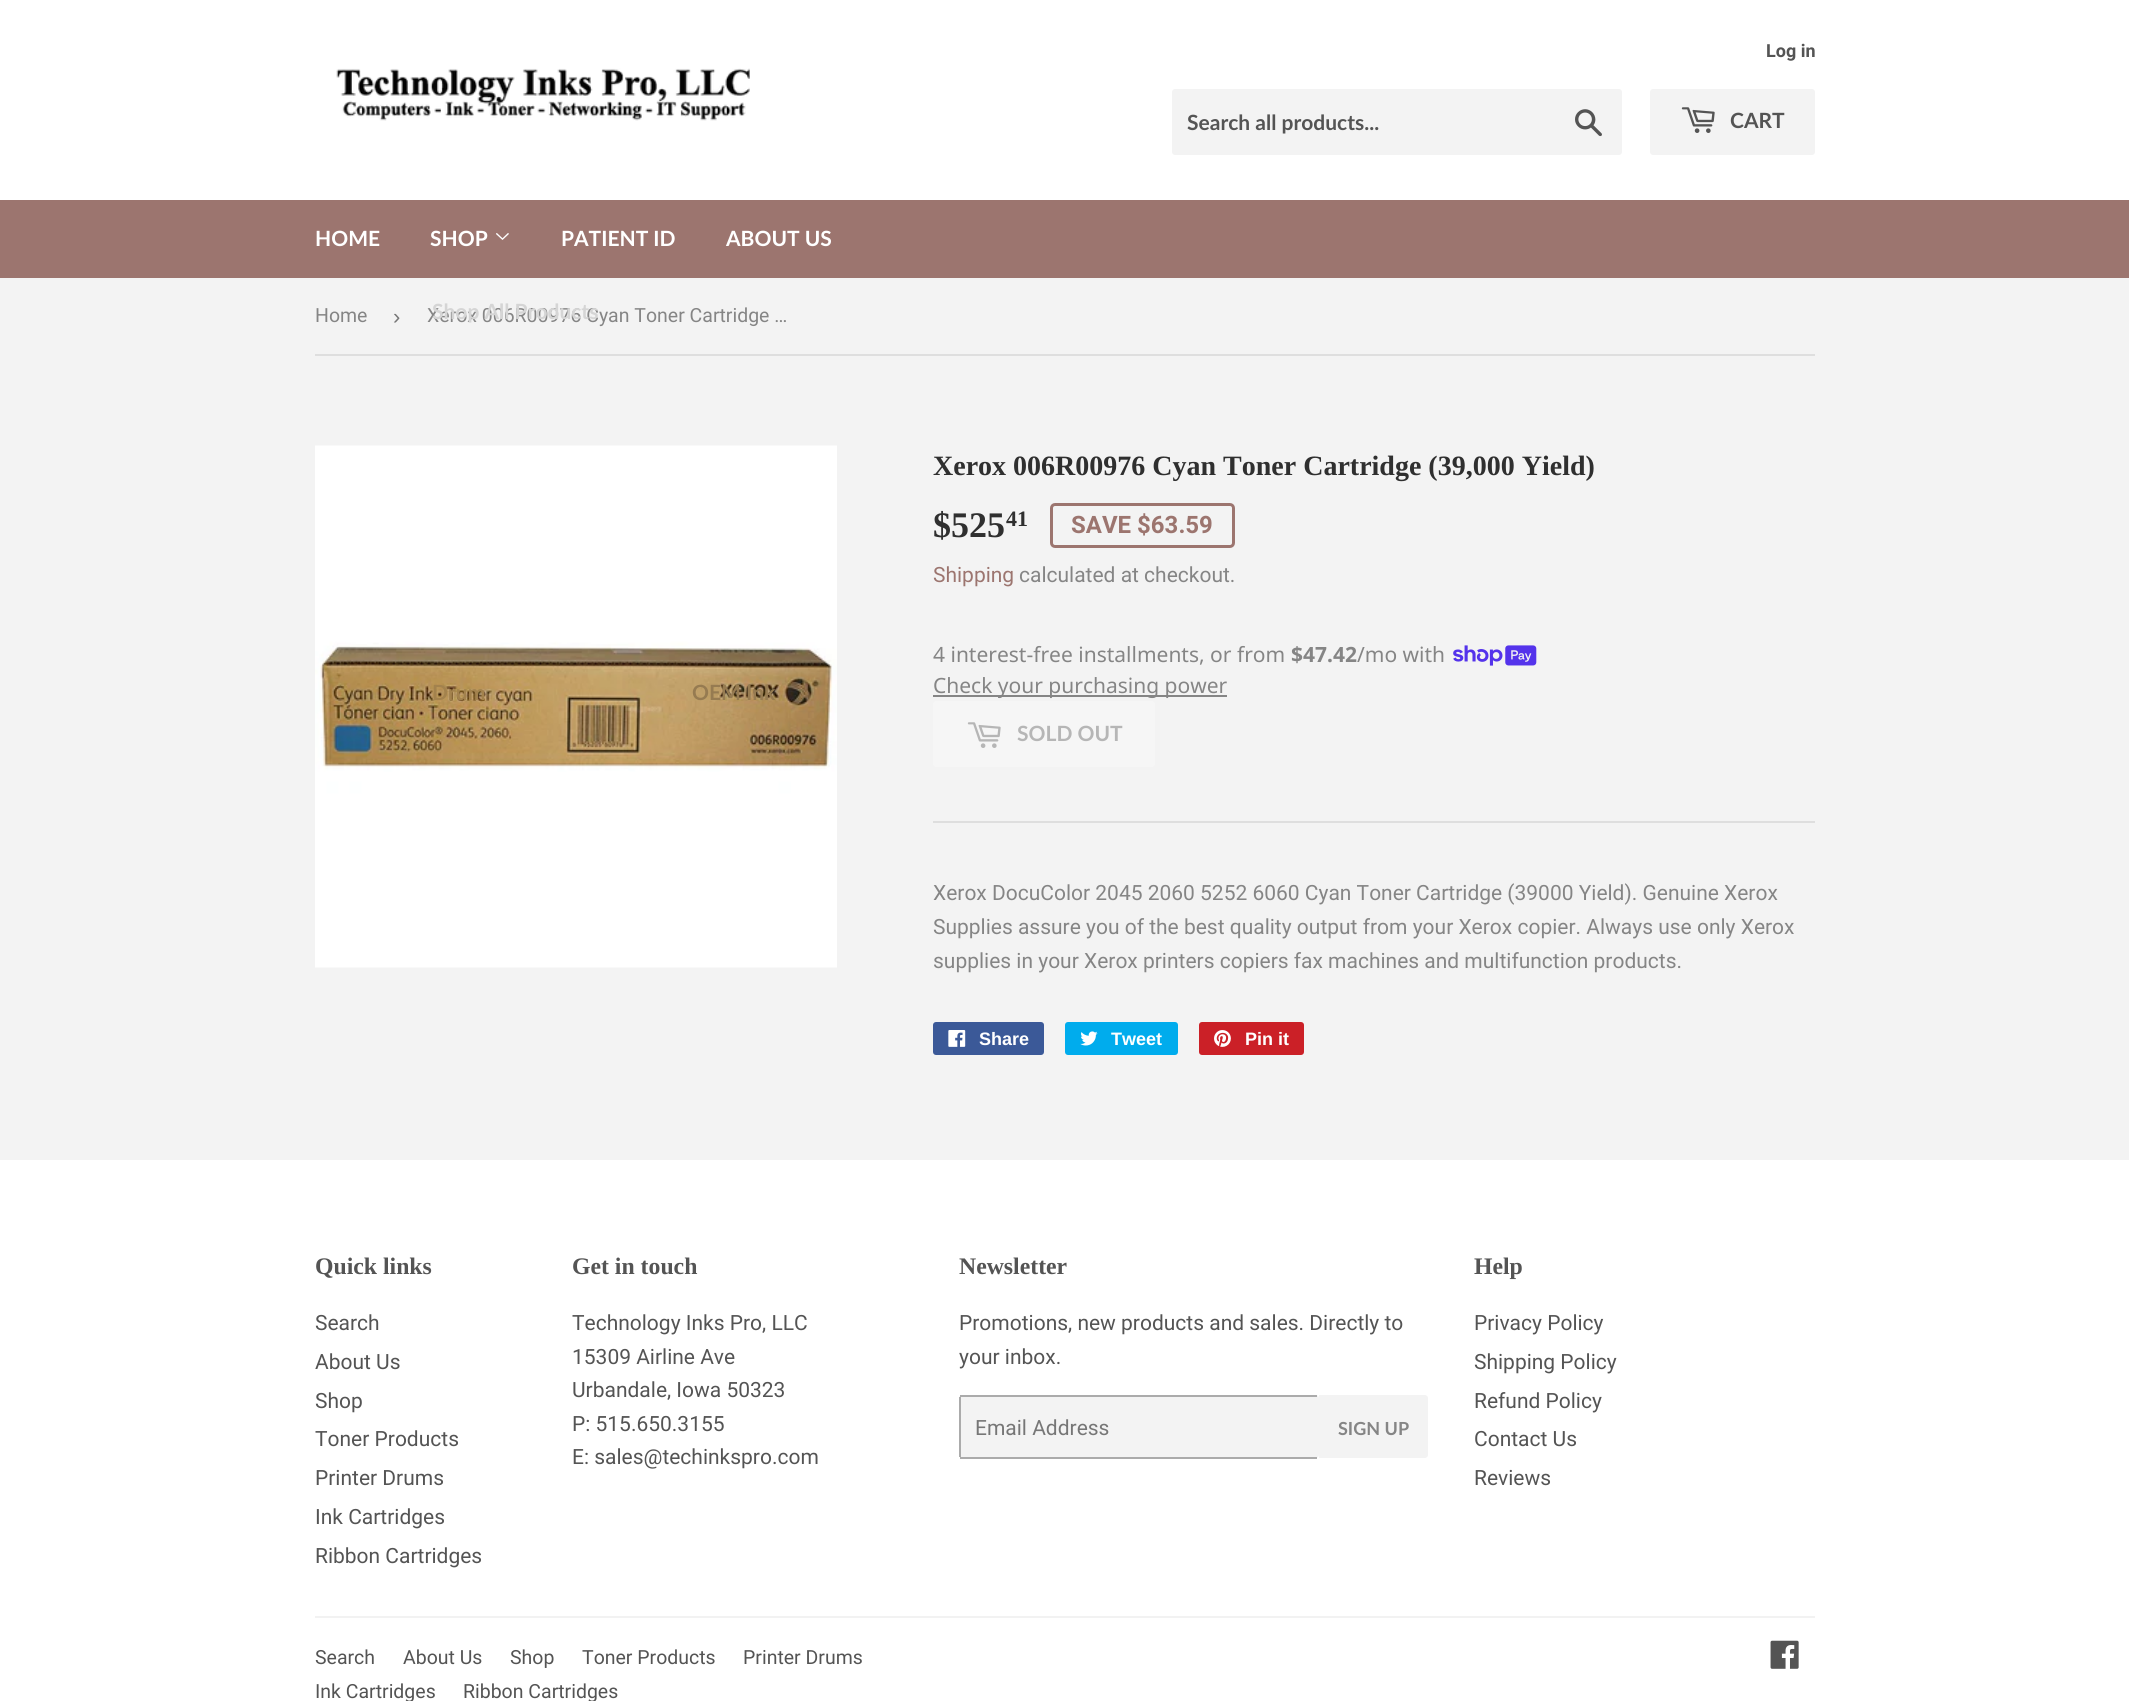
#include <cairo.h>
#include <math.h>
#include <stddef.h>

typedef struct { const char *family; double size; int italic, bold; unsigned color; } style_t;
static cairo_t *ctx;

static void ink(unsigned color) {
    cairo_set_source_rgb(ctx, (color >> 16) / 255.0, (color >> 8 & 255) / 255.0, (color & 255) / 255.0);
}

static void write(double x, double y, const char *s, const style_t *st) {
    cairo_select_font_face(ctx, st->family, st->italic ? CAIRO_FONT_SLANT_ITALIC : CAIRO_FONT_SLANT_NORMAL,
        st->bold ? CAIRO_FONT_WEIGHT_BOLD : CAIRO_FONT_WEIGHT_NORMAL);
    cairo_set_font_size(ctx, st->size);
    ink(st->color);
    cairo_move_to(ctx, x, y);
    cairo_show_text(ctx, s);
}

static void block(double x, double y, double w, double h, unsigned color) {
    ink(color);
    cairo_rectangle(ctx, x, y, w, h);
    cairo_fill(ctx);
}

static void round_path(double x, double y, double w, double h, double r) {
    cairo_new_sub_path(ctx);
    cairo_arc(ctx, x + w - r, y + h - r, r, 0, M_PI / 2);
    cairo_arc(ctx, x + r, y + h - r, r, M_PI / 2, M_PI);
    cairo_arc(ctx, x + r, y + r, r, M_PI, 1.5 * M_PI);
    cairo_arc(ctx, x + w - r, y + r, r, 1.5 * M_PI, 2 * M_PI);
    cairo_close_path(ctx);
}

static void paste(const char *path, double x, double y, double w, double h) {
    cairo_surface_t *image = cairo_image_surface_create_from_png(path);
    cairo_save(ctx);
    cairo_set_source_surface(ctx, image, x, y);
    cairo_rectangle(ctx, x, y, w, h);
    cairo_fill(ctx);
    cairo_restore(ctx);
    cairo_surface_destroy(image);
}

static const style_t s1 = {"Roboto", 18, 0, 1, 0x545454};
static const style_t s2 = {"Lato", 21, 0, 1, 0x545454};
static const style_t s3 = {"Lato", 21, 0, 1, 0xffffff};
static const style_t s4 = {"Roboto", 19.5, 0, 0, 0x858585};
static const style_t s5 = {"Lato", 21, 0, 1, 0xd5d5d5};
static const style_t s6 = {"Lato", 21, 0, 1, 0xa3824d};
static const style_t s7 = {"Lato", 21, 0, 1, 0x967b51};
static const style_t s8 = {"Liberation Sans", 22, 0, 0, 0x767676};
static const style_t s9 = {"Liberation Serif", 28, 0, 1, 0x2f2f2f};
static const style_t s10 = {"Liberation Serif", 36, 0, 1, 0x2f2f2f};
static const style_t s11 = {"Liberation Serif", 22, 0, 1, 0x2f2f2f};
static const style_t s12 = {"Roboto", 24, 0, 1, 0x9c756f};
static const style_t s13 = {"Roboto", 21, 0, 0, 0x9c756f};
static const style_t s14 = {"Roboto", 21, 0, 0, 0x858585};
static const style_t s15 = {"Noto Sans", 21, 0, 0, 0x858585};
static const style_t s16 = {"Noto Sans", 21, 0, 1, 0x858585};
static const style_t s17 = {"Lato", 21, 0, 1, 0xb6b6b6};
static const style_t s18 = {"Liberation Sans", 18, 0, 1, 0xffffff};
static const style_t s19 = {"Liberation Serif", 23.75, 0, 1, 0x545454};
static const style_t s20 = {"Roboto", 21, 0, 0, 0x545454};
static const style_t s21 = {"Roboto", 21, 0, 0, 0x767676};
static const style_t s22 = {"Lato", 18, 0, 1, 0x858585};
static const style_t s23 = {"Roboto", 19.5, 0, 0, 0x545454};

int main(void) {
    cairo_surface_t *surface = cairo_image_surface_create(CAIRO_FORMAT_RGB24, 2129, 1701);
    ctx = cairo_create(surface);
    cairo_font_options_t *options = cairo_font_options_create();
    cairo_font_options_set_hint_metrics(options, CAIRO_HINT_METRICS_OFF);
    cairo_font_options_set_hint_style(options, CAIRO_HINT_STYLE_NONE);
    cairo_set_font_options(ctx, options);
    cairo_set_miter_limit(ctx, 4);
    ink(0xf3f3f3);
    cairo_paint(ctx);
    block(0, 0, 2129, 200, 0xffffff);
    paste("pic1.png", 336, 68, 414, 53);
    write(1766, 57, "Log in", &s1);
    ink(0xf3f3f3);
    round_path(1172, 89, 450, 66, 3);
    cairo_fill(ctx);
    write(1187, 130, "Search all products...", &s2);
    paste("pic2.png", 1575, 109, 27, 28);
    ink(0xf3f3f3);
    round_path(1650, 89, 165, 66, 3);
    cairo_fill(ctx);
    paste("pic3.png", 1681, 107, 34, 26);
    write(1730, 128, "CART", &s2);
    block(0, 200, 2129, 78, 0x9c756f);
    write(315, 246, "HOME", &s3);
    write(430, 246, "SHOP", &s3);
    paste("pic4.png", 496, 233, 13, 7);
    write(427, 322, "Xerox 006R00976 Cyan Toner Cartridge …", &s4);
    write(432, 319, "Shop All Products", &s5);
    paste("pic5.png", 315, 445, 522, 523);
    write(432, 700, "Drum", &s6);
    write(692, 700, "OEM Ink", &s7);
    write(561, 246, "PATIENT ID", &s3);
    write(726, 246, "ABOUT US", &s3);
    block(315, 354, 1500, 2, 0xdedede);
    write(315, 322, "Home", &s4);
    write(393, 324, "›", &s8);
    write(933, 475, "Xerox 006R00976 Cyan Toner Cartridge (39,000 Yield)", &s9);
    write(933, 537, "$525", &s10);
    write(1006, 526, "41", &s11);
    round_path(1051.5, 504.5, 182, 42, 3.5);
    ink(0x9c756f);
    cairo_set_line_width(ctx, 3);
    cairo_stroke(ctx);
    write(1071, 533, "SAVE $63.59", &s12);
    write(933, 582, "Shipping", &s13);
    write(1019, 582, "calculated at checkout.", &s14);
    write(933, 662, "4 interest-free installments, or from", &s15);
    write(1291, 662, "$47.42", &s16);
    write(1357, 662, "/mo with", &s15);
    paste("pic6.png", 1453, 645, 84, 21);
    block(933, 695, 294, 2, 0x858585);
    write(933, 693, "Check your purchasing power", &s15);
    ink(0xf6f6f6);
    round_path(933, 701, 222, 66, 3);
    cairo_fill(ctx);
    paste("pic7.png", 967, 722, 34, 26);
    write(1017, 741, "SOLD OUT", &s17);
    block(933, 821, 882, 2, 0xdedede);
    write(933, 900, "Xerox DocuColor 2045 2060 5252 6060 Cyan Toner Cartridge (39000 Yield). Genuine Xerox", &s14);
    write(933, 934, "Supplies assure you of the best quality output from your Xerox copier. Always use only Xerox", &s14);
    write(933, 968, "supplies in your Xerox printers copiers fax machines and multifunction products.", &s14);
    ink(0x3b5998);
    round_path(933, 1022, 111, 33, 3);
    cairo_fill(ctx);
    paste("pic8.png", 948, 1030, 18, 17);
    write(979, 1045, "Share", &s18);
    ink(0x00aced);
    round_path(1065, 1022, 113, 33, 3);
    cairo_fill(ctx);
    paste("pic9.png", 1080, 1031, 18, 15);
    write(1111, 1045, "Tweet", &s18);
    ink(0xcb2027);
    round_path(1199, 1022, 105, 33, 3);
    cairo_fill(ctx);
    paste("pic10.png", 1214, 1030, 17, 17);
    write(1245, 1045, "Pin it", &s18);
    block(0, 1160, 2129, 541, 0xffffff);
    write(315, 1274, "Quick links", &s19);
    write(315, 1330, "Search", &s20);
    write(315, 1369, "About Us", &s20);
    write(315, 1408, "Shop", &s20);
    write(315, 1446, "Toner Products", &s20);
    write(315, 1485, "Printer Drums", &s20);
    write(315, 1524, "Ink Cartridges", &s20);
    write(315, 1563, "Ribbon Cartridges", &s20);
    write(572, 1274, "Get in touch", &s19);
    write(572, 1330, "Technology Inks Pro, LLC", &s20);
    write(572, 1364, "15309 Airline Ave", &s20);
    write(572, 1397, "Urbandale, Iowa 50323", &s20);
    write(572, 1431, "P: 515.650.3155", &s20);
    write(572, 1464, "E: sales@techinkspro.com", &s20);
    write(959, 1274, "Newsletter", &s19);
    write(959, 1330, "Promotions, new products and sales. Directly to", &s20);
    write(959, 1364, "your inbox.", &s20);
    ink(0xf3f3f3);
    round_path(959, 1395, 360, 63, 3);
    cairo_fill(ctx);
    block(960, 1395, 357, 2, 0xababab);
    block(960, 1457, 357, 2, 0xababab);
    block(959, 1397, 2, 60, 0xababab);
    write(975, 1435, "Email Address", &s21);
    ink(0xf3f3f3);
    cairo_new_path(ctx);
    cairo_move_to(ctx, 1319, 1395);
    cairo_line_to(ctx, 1425, 1395);
    cairo_curve_to(ctx, 1426.5, 1395, 1428, 1396.5, 1428, 1398);
    cairo_line_to(ctx, 1428, 1455);
    cairo_curve_to(ctx, 1428, 1456.5, 1426.5, 1458, 1425, 1458);
    cairo_line_to(ctx, 1319, 1458);
    cairo_close_path(ctx);
    cairo_fill(ctx);
    write(1338, 1435, "SIGN UP", &s22);
    write(1474, 1274, "Help", &s19);
    write(1474, 1330, "Privacy Policy", &s20);
    write(1474, 1369, "Shipping Policy", &s20);
    write(1474, 1408, "Refund Policy", &s20);
    write(1474, 1446, "Contact Us", &s20);
    write(1474, 1485, "Reviews", &s20);
    block(315, 1616, 1500, 2, 0xf2f2f2);
    write(315, 1664, "Search", &s23);
    write(403, 1664, "About Us", &s23);
    write(510, 1664, "Shop", &s23);
    write(582, 1664, "Toner Products", &s23);
    write(743, 1664, "Printer Drums", &s23);
    write(315, 1698, "Ink Cartridges", &s23);
    write(463, 1698, "Ribbon Cartridges", &s23);
    paste("pic11.png", 1770, 1640, 29, 29);
    cairo_surface_write_to_png(surface, "screenshot.png");
    cairo_font_options_destroy(options);
    cairo_destroy(ctx);
    cairo_surface_destroy(surface);
    return 0;
}
